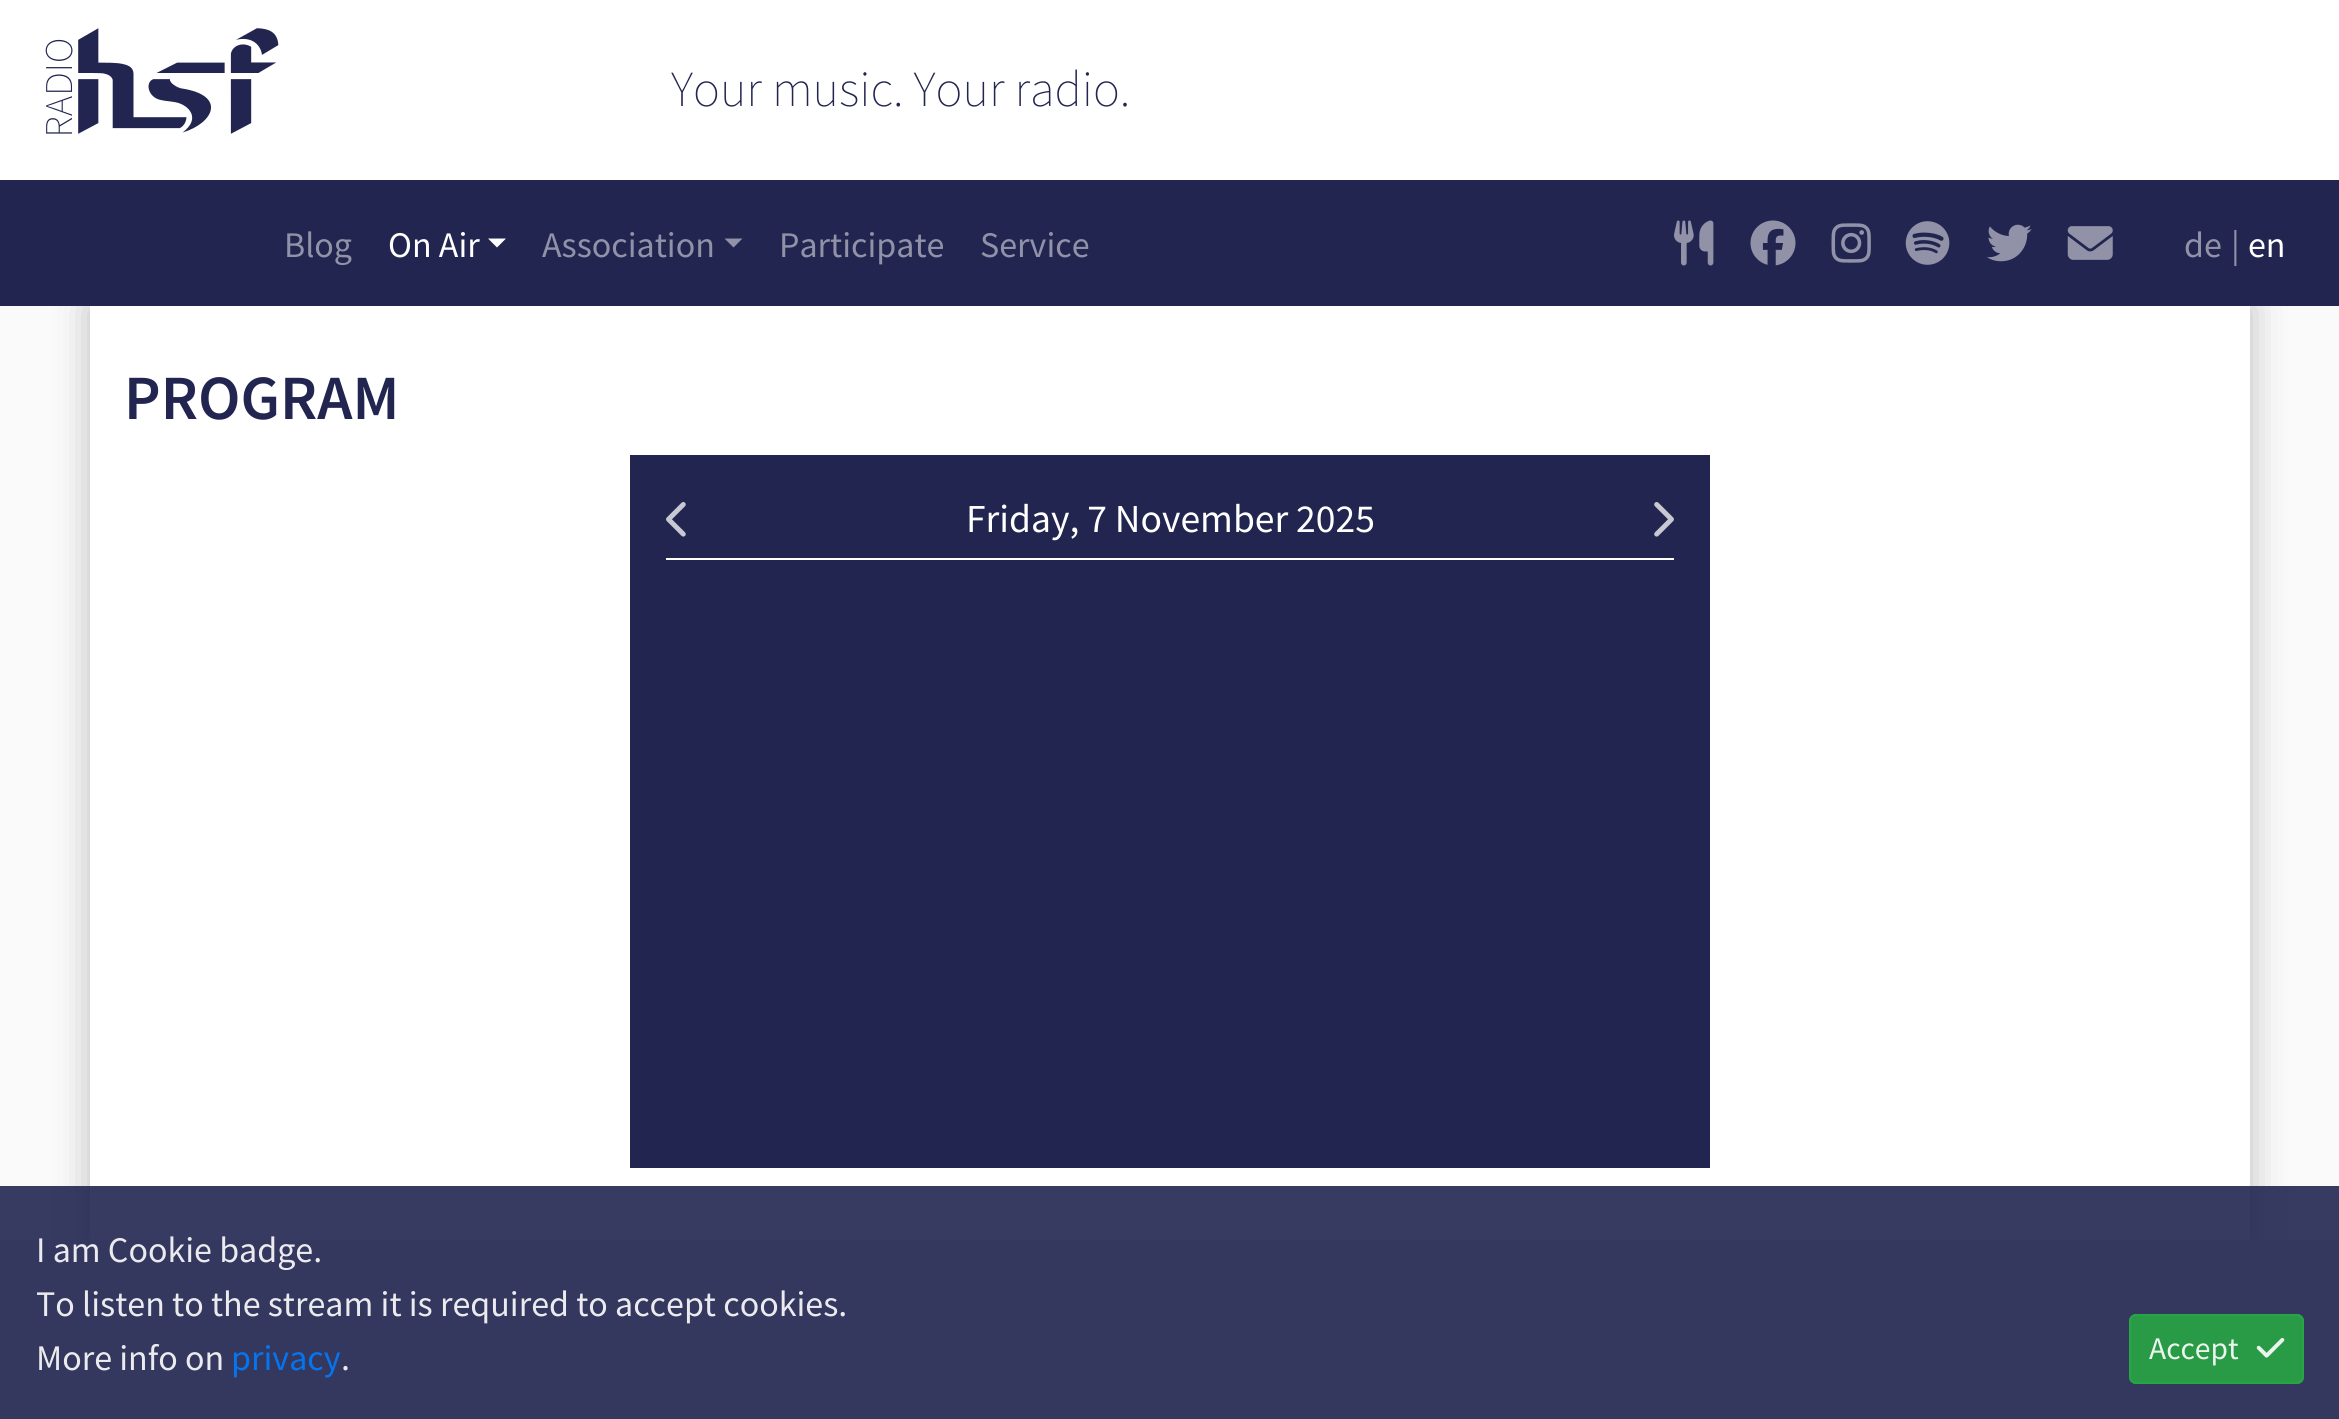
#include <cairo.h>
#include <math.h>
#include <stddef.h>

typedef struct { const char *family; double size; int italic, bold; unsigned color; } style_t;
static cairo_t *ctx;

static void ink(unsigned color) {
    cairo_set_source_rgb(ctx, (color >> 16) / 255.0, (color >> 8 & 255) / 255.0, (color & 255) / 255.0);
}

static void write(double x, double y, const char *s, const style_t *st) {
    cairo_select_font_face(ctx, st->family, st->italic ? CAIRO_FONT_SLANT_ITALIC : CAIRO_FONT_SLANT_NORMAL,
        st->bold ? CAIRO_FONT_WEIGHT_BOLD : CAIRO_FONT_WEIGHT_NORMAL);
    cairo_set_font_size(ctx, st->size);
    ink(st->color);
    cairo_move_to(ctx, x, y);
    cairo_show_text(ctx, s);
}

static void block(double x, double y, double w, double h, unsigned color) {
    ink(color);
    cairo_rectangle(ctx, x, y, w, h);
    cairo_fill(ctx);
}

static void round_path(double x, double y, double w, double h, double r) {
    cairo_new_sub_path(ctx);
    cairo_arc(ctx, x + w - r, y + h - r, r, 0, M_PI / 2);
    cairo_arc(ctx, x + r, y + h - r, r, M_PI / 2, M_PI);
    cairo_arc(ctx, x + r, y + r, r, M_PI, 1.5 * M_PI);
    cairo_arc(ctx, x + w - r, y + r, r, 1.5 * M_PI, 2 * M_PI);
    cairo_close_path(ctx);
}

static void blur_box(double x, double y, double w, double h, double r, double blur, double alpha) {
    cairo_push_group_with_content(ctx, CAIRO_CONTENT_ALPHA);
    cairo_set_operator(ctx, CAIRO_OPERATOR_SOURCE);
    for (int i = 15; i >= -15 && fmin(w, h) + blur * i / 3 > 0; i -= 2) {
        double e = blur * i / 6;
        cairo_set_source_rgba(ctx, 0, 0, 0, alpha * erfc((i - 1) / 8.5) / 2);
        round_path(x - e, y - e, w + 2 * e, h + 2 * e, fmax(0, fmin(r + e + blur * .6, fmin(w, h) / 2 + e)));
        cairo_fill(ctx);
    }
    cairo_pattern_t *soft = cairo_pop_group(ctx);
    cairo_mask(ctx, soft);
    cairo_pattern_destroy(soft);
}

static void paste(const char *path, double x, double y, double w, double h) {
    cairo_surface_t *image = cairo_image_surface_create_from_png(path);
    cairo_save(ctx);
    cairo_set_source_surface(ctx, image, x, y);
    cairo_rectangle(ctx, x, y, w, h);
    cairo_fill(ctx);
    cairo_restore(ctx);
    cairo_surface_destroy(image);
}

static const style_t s1 = {"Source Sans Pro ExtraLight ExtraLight", 50.5, 0, 0, 0x222550};
static const style_t s2 = {"Source Sans Pro", 36, 0, 0, 0x9192a8};
static const style_t s3 = {"Source Sans Pro", 36, 0, 0, 0xffffff};
static const style_t s4 = {"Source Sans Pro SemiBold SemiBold", 63, 0, 0, 0x222550};
static const style_t s5 = {"Source Sans Pro", 39.6, 0, 0, 0xffffff};
static const style_t s6 = {"Source Sans Pro", 36, 0, 0, 0xebebef};
static const style_t s7 = {"Source Sans Pro", 36, 0, 0, 0x0574ef};
static const style_t s8 = {"Source Sans Pro", 31.5, 0, 0, 0xeaf5ed};

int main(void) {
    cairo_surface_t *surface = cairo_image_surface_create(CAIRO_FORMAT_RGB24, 2339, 1419);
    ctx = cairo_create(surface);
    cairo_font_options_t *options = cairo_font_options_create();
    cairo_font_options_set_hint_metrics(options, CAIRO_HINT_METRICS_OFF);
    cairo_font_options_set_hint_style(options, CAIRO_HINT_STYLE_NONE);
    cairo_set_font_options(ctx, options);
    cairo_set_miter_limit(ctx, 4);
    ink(0xffffff);
    cairo_paint(ctx);
    paste("pic1.png", 45, 28, 234, 106);
    write(671, 106, "Your music. Your radio.", &s1);
    block(0, 306, 2339, 934, 0xfafafa);
    ink(0x000000);
    blur_box(90, 306, 2160, 934, 0, 18, 0.25);
    block(0, 180, 2339, 126, 0x222550);
    write(284, 257, "Blog", &s2);
    write(388, 257, "On Air", &s3);
    cairo_new_path(ctx);
    cairo_move_to(ctx, 488, 238.5);
    cairo_line_to(ctx, 506, 238.5);
    cairo_line_to(ctx, 497, 247.5);
    cairo_close_path(ctx);
    cairo_fill(ctx);
    write(542, 257, "Association", &s2);
    cairo_new_path(ctx);
    cairo_move_to(ctx, 724.5, 238.5);
    cairo_line_to(ctx, 742.5, 238.5);
    cairo_line_to(ctx, 733.5, 247.5);
    cairo_close_path(ctx);
    cairo_fill(ctx);
    write(779, 257, "Participate", &s2);
    write(980, 257, "Service", &s2);
    paste("pic2.png", 1674, 220, 40, 46);
    paste("pic3.png", 1750, 220, 46, 46);
    paste("pic4.png", 1831, 223, 40, 40);
    paste("pic5.png", 1905, 221, 45, 44);
    paste("pic6.png", 1987, 224, 45, 38);
    paste("pic7.png", 2067, 226, 46, 34);
    write(2184, 257, "de", &s2);
    write(2231, 257, "|", &s2);
    write(2248, 257, "en", &s3);
    block(90, 306, 2160, 934, 0xffffff);
    write(124, 419, "PROGRAM", &s4);
    block(630, 455, 1080, 713, 0x222550);
    block(666, 558, 1008, 2, 0xffffff);
    paste("pic8.png", 666, 502, 20, 35);
    write(966, 532, "Friday, 7 November 2025", &s5);
    paste("pic9.png", 1654, 502, 20, 35);
    block(0, 1240, 2339, 179, 0xe0e0e0);
    cairo_set_source_rgba(ctx, 0.133, 0.145, 0.314, 0.9);
    cairo_rectangle(ctx, 0, 1186, 2339, 233);
    cairo_fill(ctx);
    write(36, 1262, "I am Cookie badge.", &s6);
    write(36, 1316, "To listen to the stream it is required to accept cookies.", &s6);
    write(36, 1370, "More info on", &s6);
    write(231, 1370, "privacy", &s7);
    write(341, 1370, ".", &s6);
    cairo_set_source_rgba(ctx, 0.157, 0.655, 0.271, 0.9);
    round_path(2129, 1314, 175, 70, 7);
    cairo_fill(ctx);
    round_path(2130, 1315, 173, 68, 6);
    cairo_stroke(ctx);
    write(2149, 1359, "Accept", &s8);
    paste("pic10.png", 2256, 1337, 29, 21);
    cairo_surface_write_to_png(surface, "screenshot.png");
    cairo_font_options_destroy(options);
    cairo_destroy(ctx);
    cairo_surface_destroy(surface);
    return 0;
}
